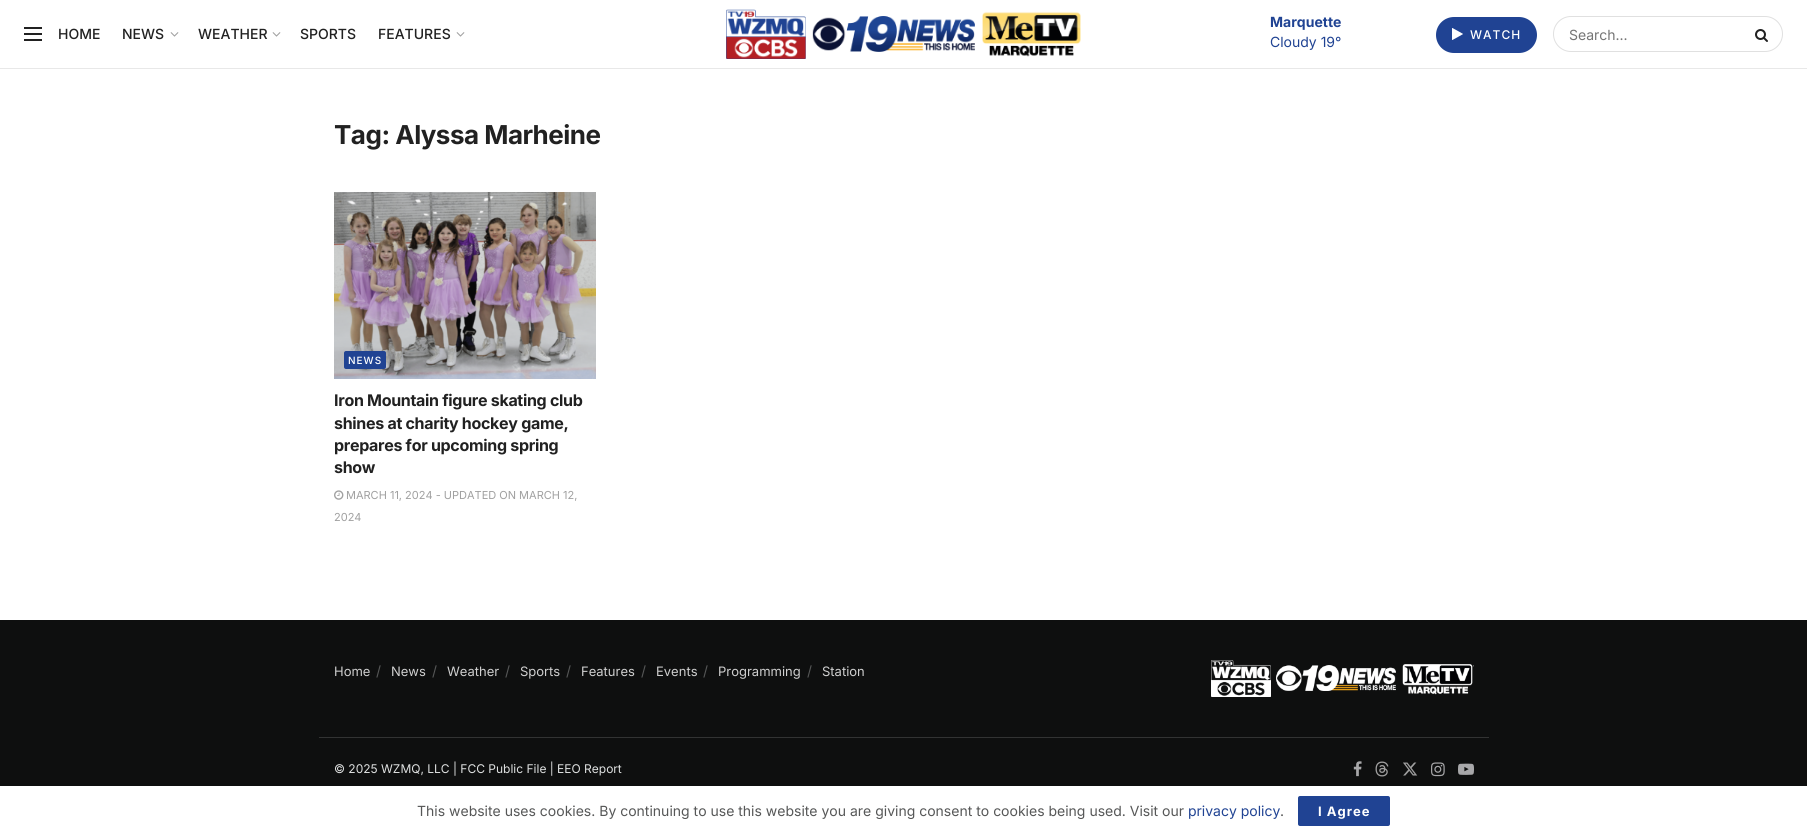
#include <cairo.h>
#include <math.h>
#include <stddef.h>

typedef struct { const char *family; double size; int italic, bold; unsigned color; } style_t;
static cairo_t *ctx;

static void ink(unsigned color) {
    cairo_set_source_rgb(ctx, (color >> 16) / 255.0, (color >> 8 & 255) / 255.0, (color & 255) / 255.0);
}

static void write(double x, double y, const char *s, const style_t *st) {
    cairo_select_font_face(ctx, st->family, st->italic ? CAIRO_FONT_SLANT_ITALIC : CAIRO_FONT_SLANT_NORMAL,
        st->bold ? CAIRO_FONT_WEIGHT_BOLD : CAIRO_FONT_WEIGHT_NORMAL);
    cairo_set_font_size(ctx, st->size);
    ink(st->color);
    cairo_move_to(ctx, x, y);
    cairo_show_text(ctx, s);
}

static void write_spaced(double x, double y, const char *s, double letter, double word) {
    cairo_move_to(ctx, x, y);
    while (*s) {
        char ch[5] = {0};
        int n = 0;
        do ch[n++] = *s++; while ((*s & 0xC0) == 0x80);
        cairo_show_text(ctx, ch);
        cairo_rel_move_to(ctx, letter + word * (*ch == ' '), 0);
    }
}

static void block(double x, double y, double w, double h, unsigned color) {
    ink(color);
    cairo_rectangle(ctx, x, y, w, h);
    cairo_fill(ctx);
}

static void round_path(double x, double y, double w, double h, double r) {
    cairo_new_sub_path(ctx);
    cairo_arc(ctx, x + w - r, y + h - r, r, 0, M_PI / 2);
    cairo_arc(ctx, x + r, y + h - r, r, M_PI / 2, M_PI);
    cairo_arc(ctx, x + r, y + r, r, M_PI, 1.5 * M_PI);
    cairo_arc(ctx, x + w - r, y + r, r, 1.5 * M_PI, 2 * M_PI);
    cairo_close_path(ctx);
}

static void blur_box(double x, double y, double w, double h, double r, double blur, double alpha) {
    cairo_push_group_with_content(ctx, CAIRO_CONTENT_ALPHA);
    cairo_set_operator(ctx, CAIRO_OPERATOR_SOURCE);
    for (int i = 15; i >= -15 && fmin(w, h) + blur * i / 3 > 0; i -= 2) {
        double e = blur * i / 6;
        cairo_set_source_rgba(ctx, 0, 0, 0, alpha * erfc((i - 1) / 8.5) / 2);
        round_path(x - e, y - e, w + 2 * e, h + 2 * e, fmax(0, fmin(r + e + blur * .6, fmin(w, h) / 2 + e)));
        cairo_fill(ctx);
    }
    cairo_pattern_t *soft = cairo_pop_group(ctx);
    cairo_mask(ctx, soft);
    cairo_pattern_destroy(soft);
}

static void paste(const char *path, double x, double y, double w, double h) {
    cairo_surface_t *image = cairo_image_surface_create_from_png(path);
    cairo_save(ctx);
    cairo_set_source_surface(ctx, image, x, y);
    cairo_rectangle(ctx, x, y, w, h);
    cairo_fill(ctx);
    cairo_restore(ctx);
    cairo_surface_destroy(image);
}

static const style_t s1 = {"Inter Medium", 14, 0, 0, 0x212121};
static const style_t s2 = {"Inter", 14, 0, 1, 0x204393};
static const style_t s3 = {"Inter", 14, 0, 0, 0x204393};
static const style_t s4 = {"Inter", 14, 0, 0, 0x757575};
static const style_t s5 = {"Inter", 11, 0, 0, 0xa0a0a0};
static const style_t s6 = {"Inter", 13, 0, 0, 0xcfcfcf};
static const style_t s7 = {"Inter", 14, 0, 0, 0x565757};
static const style_t s8 = {"Inter", 12, 0, 0, 0xdfe1e1};

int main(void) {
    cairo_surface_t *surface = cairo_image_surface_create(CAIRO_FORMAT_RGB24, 1807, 836);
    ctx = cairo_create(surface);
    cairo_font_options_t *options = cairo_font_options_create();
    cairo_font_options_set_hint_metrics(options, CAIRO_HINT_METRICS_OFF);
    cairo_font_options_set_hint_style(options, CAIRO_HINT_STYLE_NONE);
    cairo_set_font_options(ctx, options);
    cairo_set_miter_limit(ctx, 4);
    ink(0xffffff);
    cairo_paint(ctx);
    block(0, 68, 1807, 1, 0xe8e8e8);
    block(24, 27, 18, 2, 0x212121);
    block(24, 33, 18, 2, 0x212121);
    block(24, 39, 18, 2, 0x212121);
    write(58, 39, "HOME", &s1);
    write(122, 39, "NEWS", &s1);
    paste("pic1.png", 170, 32, 9, 5);
    write(198, 39, "WEATHER", &s1);
    paste("pic1.png", 272, 32, 9, 5);
    write(300, 39, "SPORTS", &s1);
    write(378, 39, "FEATURES", &s1);
    paste("pic1.png", 456, 32, 9, 5);
    paste("pic2.png", 726, 9, 355, 50);
    write(1270, 27, "Marquette", &s2);
    write(1270, 47, "Cloudy 19°", &s3);
    round_path(1436, 17, 101, 36, 18);
    cairo_fill(ctx);
    paste("pic3.png", 1452, 28, 11, 12);
    cairo_select_font_face(ctx, "Inter Medium", CAIRO_FONT_SLANT_NORMAL, CAIRO_FONT_WEIGHT_NORMAL);
    cairo_set_font_size(ctx, 12);
    ink(0xffffff);
    write_spaced(1470, 39, "WATCH", 1, 0);
    round_path(1553.5, 16.5, 229, 35, 17.5);
    ink(0xe0e0e0);
    cairo_set_line_width(ctx, 1);
    cairo_stroke(ctx);
    write(1569, 40, "Search...", &s4);
    paste("pic4.png", 1755, 29, 13, 13);
    cairo_select_font_face(ctx, "Inter", CAIRO_FONT_SLANT_NORMAL, CAIRO_FONT_WEIGHT_BOLD);
    cairo_set_font_size(ctx, 26);
    ink(0x212121);
    write_spaced(334, 144, "Tag: Alyssa Marheine", -0.5, 0);
    paste("pic5.png", 334, 192, 262, 187);
    ink(0x204393);
    round_path(344, 351, 42, 18, 2);
    cairo_fill(ctx);
    cairo_select_font_face(ctx, "Inter Medium", CAIRO_FONT_SLANT_NORMAL, CAIRO_FONT_WEIGHT_NORMAL);
    cairo_set_font_size(ctx, 10);
    ink(0xffffff);
    write_spaced(348, 364, "NEWS", 1, 0);
    cairo_select_font_face(ctx, "Inter", CAIRO_FONT_SLANT_NORMAL, CAIRO_FONT_WEIGHT_BOLD);
    cairo_set_font_size(ctx, 16);
    ink(0x212121);
    write_spaced(334, 406, "Iron Mountain figure skating club", -0.3, 0);
    write_spaced(334, 429, "shines at charity hockey game,", -0.3, 0);
    write_spaced(334, 451, "prepares for upcoming spring", -0.3, 0);
    write_spaced(334, 473, "show", -0.3, 0);
    paste("pic6.png", 334, 490, 10, 10);
    write(346, 499, "MARCH 11, 2024 - UPDATED ON MARCH 12,", &s5);
    write(334, 521, "2024", &s5);
    block(0, 620, 1807, 166, 0x0e0f0f);
    write(334, 676, "Home", &s6);
    write(376, 676, "/", &s7);
    write(391, 676, "News", &s6);
    write(432, 676, "/", &s7);
    write(447, 676, "Weather", &s6);
    write(505, 676, "/", &s7);
    write(520, 676, "Sports", &s6);
    write(566, 676, "/", &s7);
    write(581, 676, "Features", &s6);
    write(641, 676, "/", &s7);
    write(656, 676, "Events", &s6);
    write(703, 676, "/", &s7);
    write(718, 676, "Programming", &s6);
    write(807, 676, "/", &s7);
    write(822, 676, "Station", &s6);
    paste("pic7.png", 1211, 660, 263, 37);
    block(319, 737, 1170, 1, 0x323333);
    write(334, 773, "© 2025 WZMQ, LLC | FCC Public File | EEO Report", &s8);
    paste("pic8.png", 1353, 761, 9, 16);
    paste("pic9.png", 1375, 761, 14, 16);
    paste("pic10.png", 1403, 762, 15, 14);
    paste("pic11.png", 1431, 762, 14, 15);
    paste("pic12.png", 1458, 763, 16, 12);
    ink(0x000000);
    blur_box(0, 788, 1807, 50, 0, 10, 0.15);
    block(0, 786, 1807, 50, 0xffffff);
    write(417, 816, "This website uses cookies. By continuing to use this website you are giving consent to cookies being used. Visit our", &s7);
    write(1188, 816, "privacy policy", &s3);
    write(1280, 816, ".", &s7);
    ink(0x204393);
    round_path(1298, 796, 92, 30, 2);
    cairo_fill(ctx);
    cairo_select_font_face(ctx, "Inter", CAIRO_FONT_SLANT_NORMAL, CAIRO_FONT_WEIGHT_BOLD);
    cairo_set_font_size(ctx, 13);
    ink(0xffffff);
    write_spaced(1318, 816, "I Agree", 1, 0);
    cairo_surface_write_to_png(surface, "screenshot.png");
    cairo_font_options_destroy(options);
    cairo_destroy(ctx);
    cairo_surface_destroy(surface);
    return 0;
}
